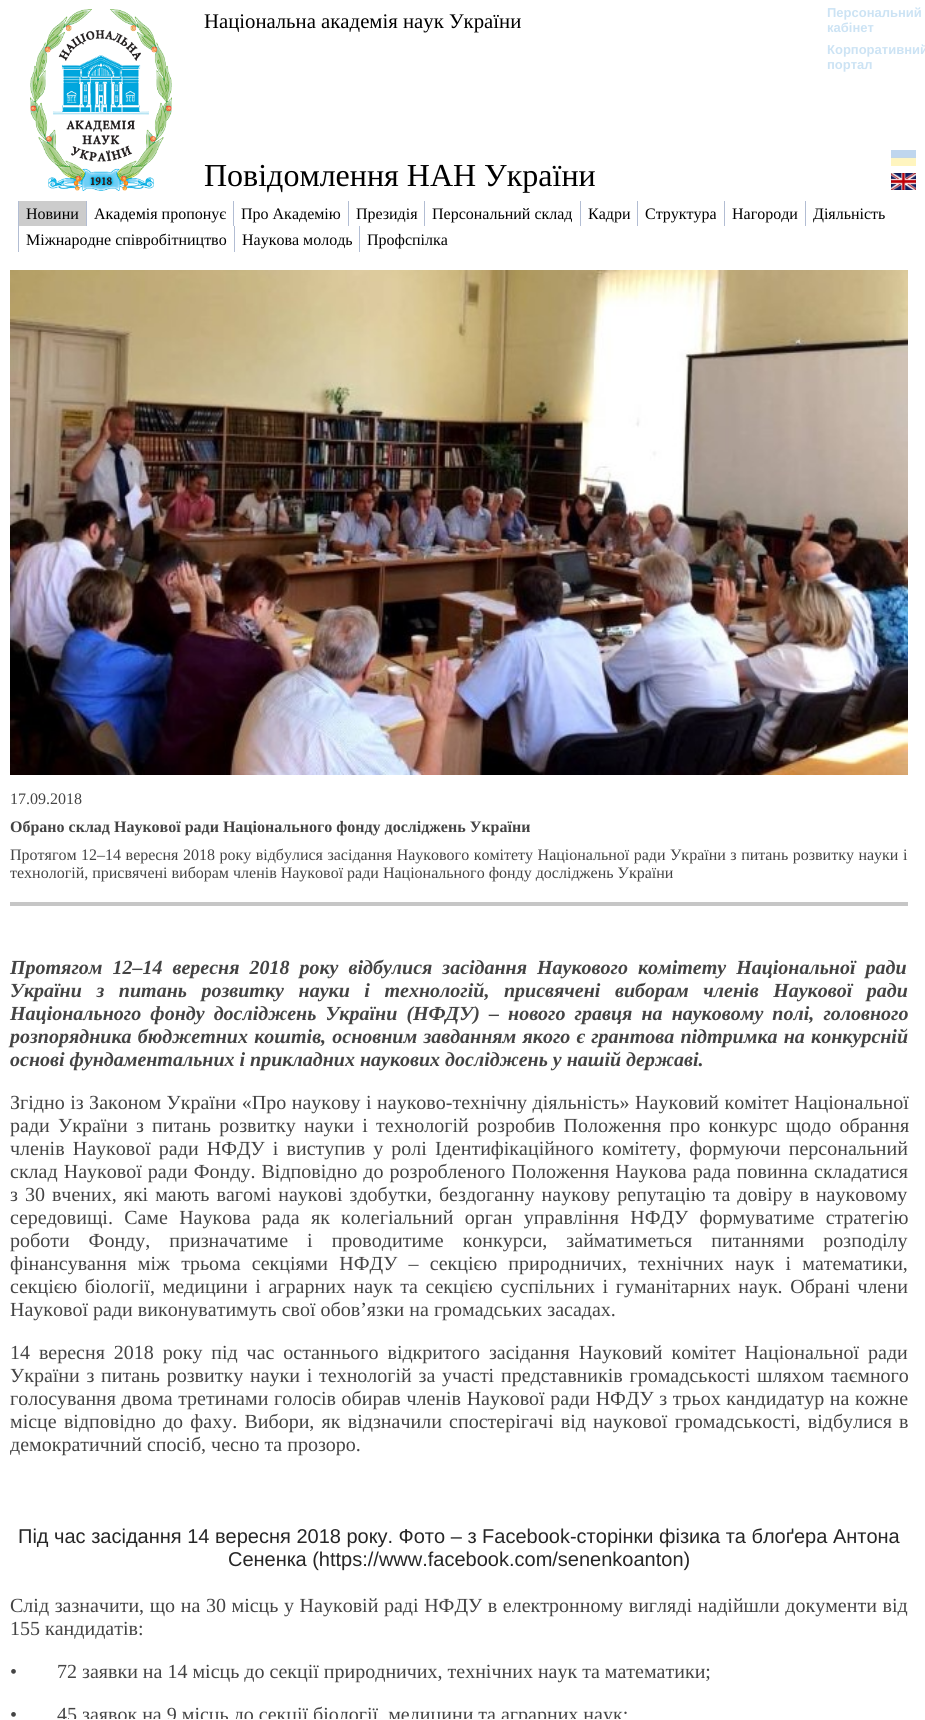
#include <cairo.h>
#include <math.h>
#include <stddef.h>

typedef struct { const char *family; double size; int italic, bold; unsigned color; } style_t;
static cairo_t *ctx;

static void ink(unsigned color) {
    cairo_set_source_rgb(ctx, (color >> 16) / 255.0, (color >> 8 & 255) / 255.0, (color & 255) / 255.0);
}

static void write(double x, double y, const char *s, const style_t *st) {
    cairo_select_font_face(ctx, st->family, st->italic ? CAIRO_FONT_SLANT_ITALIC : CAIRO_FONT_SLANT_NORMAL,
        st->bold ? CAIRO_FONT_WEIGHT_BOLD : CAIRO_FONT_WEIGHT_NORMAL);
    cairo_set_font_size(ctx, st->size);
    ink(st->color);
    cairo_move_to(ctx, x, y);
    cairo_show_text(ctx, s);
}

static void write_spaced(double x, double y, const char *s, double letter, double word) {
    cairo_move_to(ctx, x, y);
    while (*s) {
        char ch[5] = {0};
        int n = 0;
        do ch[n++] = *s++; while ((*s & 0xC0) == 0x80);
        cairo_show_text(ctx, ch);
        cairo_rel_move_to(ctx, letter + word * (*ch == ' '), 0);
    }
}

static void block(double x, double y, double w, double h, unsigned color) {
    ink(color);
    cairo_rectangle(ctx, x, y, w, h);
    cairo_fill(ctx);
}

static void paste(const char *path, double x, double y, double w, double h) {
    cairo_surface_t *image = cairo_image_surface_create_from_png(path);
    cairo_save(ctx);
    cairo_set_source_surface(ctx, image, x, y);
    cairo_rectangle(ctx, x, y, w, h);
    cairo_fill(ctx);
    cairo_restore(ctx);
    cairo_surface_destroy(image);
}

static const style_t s1 = {"Liberation Serif", 20.75, 0, 0, 0x000000};
static const style_t s2 = {"Liberation Sans", 13, 0, 1, 0xcce3f4};
static const style_t s3 = {"Liberation Serif", 32, 0, 0, 0x000000};
static const style_t s4 = {"Liberation Serif", 16, 0, 0, 0x000000};
static const style_t s5 = {"Liberation Serif", 16, 0, 0, 0x444444};
static const style_t s6 = {"Liberation Serif", 16, 0, 1, 0x444444};
static const style_t s7 = {"Liberation Serif", 20, 1, 1, 0x444444};
static const style_t s8 = {"Liberation Serif", 20, 0, 0, 0x444444};
static const style_t s9 = {"Liberation Sans", 20, 0, 0, 0x262626};

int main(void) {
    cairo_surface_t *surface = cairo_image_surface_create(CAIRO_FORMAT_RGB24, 925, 1720);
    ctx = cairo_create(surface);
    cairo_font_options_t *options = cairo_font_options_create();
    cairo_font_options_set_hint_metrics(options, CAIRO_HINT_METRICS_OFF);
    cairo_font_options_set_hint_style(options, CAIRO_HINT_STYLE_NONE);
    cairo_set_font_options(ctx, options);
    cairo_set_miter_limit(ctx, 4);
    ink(0xffffff);
    cairo_paint(ctx);
    paste("pic1.png", 30, 9, 142, 182);
    write(204, 28, "Національна академія наук України", &s1);
    write(827, 17, "Персональний", &s2);
    write(827, 32, "кабінет", &s2);
    write(827, 54, "Корпоративний", &s2);
    write(827, 69, "портал", &s2);
    write(204, 186, "Повідомлення НАН України", &s3);
    paste("pic2.png", 891, 150, 25, 16);
    paste("pic3.png", 891, 173, 25, 17);
    block(19, 201, 67, 25, 0xcccccc);
    block(18, 201, 1, 51, 0xb2bdd3);
    write(26, 219, "Новини", &s4);
    block(86, 201, 1, 25, 0xb2bdd3);
    write(94, 219, "Академія пропонує", &s4);
    block(233, 201, 1, 25, 0xb2bdd3);
    write(241, 219, "Про Академію", &s4);
    block(348, 201, 1, 25, 0xb2bdd3);
    write(356, 219, "Президія", &s4);
    block(424, 201, 1, 25, 0xb2bdd3);
    write(432, 219, "Персональний склад", &s4);
    block(580, 201, 1, 25, 0xb2bdd3);
    write(588, 219, "Кадри", &s4);
    block(637, 201, 1, 25, 0xb2bdd3);
    write(645, 219, "Структура", &s4);
    block(724, 201, 1, 25, 0xb2bdd3);
    write(732, 219, "Нагороди", &s4);
    block(805, 201, 1, 25, 0xb2bdd3);
    write(813, 219, "Діяльність", &s4);
    write(26, 245, "Міжнародне співробітництво", &s4);
    block(234, 226, 1, 26, 0xb2bdd3);
    write(242, 245, "Наукова молодь", &s4);
    block(359, 226, 1, 26, 0xb2bdd3);
    write(367, 245, "Профспілка", &s4);
    paste("pic4.png", 10, 270, 898, 505);
    write(10, 804, "17.09.2018", &s5);
    write(10, 832, "Обрано склад Наукової ради Національного фонду досліджень України", &s6);
    cairo_select_font_face(ctx, "Liberation Serif", CAIRO_FONT_SLANT_NORMAL, CAIRO_FONT_WEIGHT_NORMAL);
    write_spaced(10, 860, "Протягом 12–14 вересня 2018 року відбулися засідання Наукового комітету Національної ради України з питань розвитку науки і", 0, 0.5);
    write(10, 878, "технологій, присвячені виборам членів Наукової ради Національного фонду досліджень України", &s5);
    block(10, 902, 898, 4, 0xc6c6c6);
    cairo_select_font_face(ctx, "Liberation Serif", CAIRO_FONT_SLANT_ITALIC, CAIRO_FONT_WEIGHT_BOLD);
    cairo_set_font_size(ctx, 20);
    ink(0x444444);
    write_spaced(10, 974, "Протягом 12–14 вересня 2018 року відбулися засідання Наукового комітету Національної ради", 0, 5);
    write_spaced(10, 997, "України з питань розвитку науки і технологій, присвячені виборам членів Наукової ради", 0, 9.6);
    write_spaced(10, 1020, "Національного фонду досліджень України (НФДУ) – нового гравця на науковому полі, головного", 0, 4.1);
    write_spaced(10, 1043, "розпорядника бюджетних коштів, основним завданням якого є грантова підтримка на конкурсній", 0, 1.25);
    write(10, 1066, "основі фундаментальних і прикладних наукових досліджень у нашій державі.", &s7);
    cairo_select_font_face(ctx, "Liberation Serif", CAIRO_FONT_SLANT_NORMAL, CAIRO_FONT_WEIGHT_NORMAL);
    write_spaced(10, 1109, "Згідно із Законом України «Про наукову і науково-технічну діяльність» Науковий комітет Національної", 0, 0.5);
    write_spaced(10, 1132, "ради України з питань розвитку науки і технологій розробив Положення про конкурс щодо обрання", 0, 3.25);
    write_spaced(10, 1155, "членів Наукової ради НФДУ і виступив у ролі Ідентифікаційного комітету, формуючи персональний", 0, 3.1);
    write_spaced(10, 1178, "склад Наукової ради Фонду. Відповідно до розробленого Положення Наукова рада повинна складатися", 0, 1.1);
    write_spaced(10, 1201, "з 30 вчених, які мають вагомі наукові здобутки, бездоганну наукову репутацію та довіру в науковому", 0, 2);
    write_spaced(10, 1224, "середовищі. Саме Наукова рада як колегіальний орган управління НФДУ формуватиме стратегію", 0, 6.25);
    write_spaced(10, 1247, "роботи Фонду, призначатиме і проводитиме конкурси, займатиметься питаннями розподілу", 0, 14);
    write_spaced(10, 1270, "фінансування між трьома секціями НФДУ – секцією природничих, технічних наук і математики,", 0, 6.25);
    write_spaced(10, 1293, "секцією біології, медицини і аграрних наук та секцією суспільних і гуманітарних наук. Обрані члени", 0, 2.6);
    write(10, 1316, "Наукової ради виконуватимуть свої обов’язки на громадських засадах.", &s8);
    write_spaced(10, 1359, "14 вересня 2018 року під час останнього відкритого засідання Науковий комітет Національної ради", 0, 3.9);
    write_spaced(10, 1382, "України з питань розвитку науки і технологій за участі представників громадськості шляхом таємного", 0, 1.75);
    write_spaced(10, 1405, "голосування двома третинами голосів обирав членів Наукової ради НФДУ з трьох кандидатур на кожне", 0, 0.6);
    write_spaced(10, 1428, "місце відповідно до фаху. Вибори, як відзначили спостерігачі від наукової громадськості, відбулися в", 0, 2.25);
    write(10, 1451, "демократичний спосіб, чесно та прозоро.", &s8);
    write(18, 1543, "Під час засідання 14 вересня 2018 року. Фото – з Facebook-сторінки фізика та блоґера Антона", &s9);
    write(228, 1566, "Сененка (https://www.facebook.com/senenkoanton)", &s9);
    cairo_select_font_face(ctx, "Liberation Serif", CAIRO_FONT_SLANT_NORMAL, CAIRO_FONT_WEIGHT_NORMAL);
    ink(0x444444);
    write_spaced(10, 1612, "Слід зазначити, що на 30 місць у Науковій раді НФДУ в електронному вигляді надійшли документи від", 0, 0.6);
    write(10, 1635, "155 кандидатів:", &s8);
    write(10, 1678, "•        72 заявки на 14 місць до секції природничих, технічних наук та математики;", &s8);
    cairo_save(ctx);
    cairo_rectangle(ctx, 3, 2, 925, 1717);
    cairo_clip(ctx);
    write(10, 1721, "•        45 заявок на 9 місць до секції біології, медицини та аграрних наук;", &s8);
    cairo_restore(ctx);
    cairo_surface_write_to_png(surface, "screenshot.png");
    cairo_font_options_destroy(options);
    cairo_destroy(ctx);
    cairo_surface_destroy(surface);
    return 0;
}
